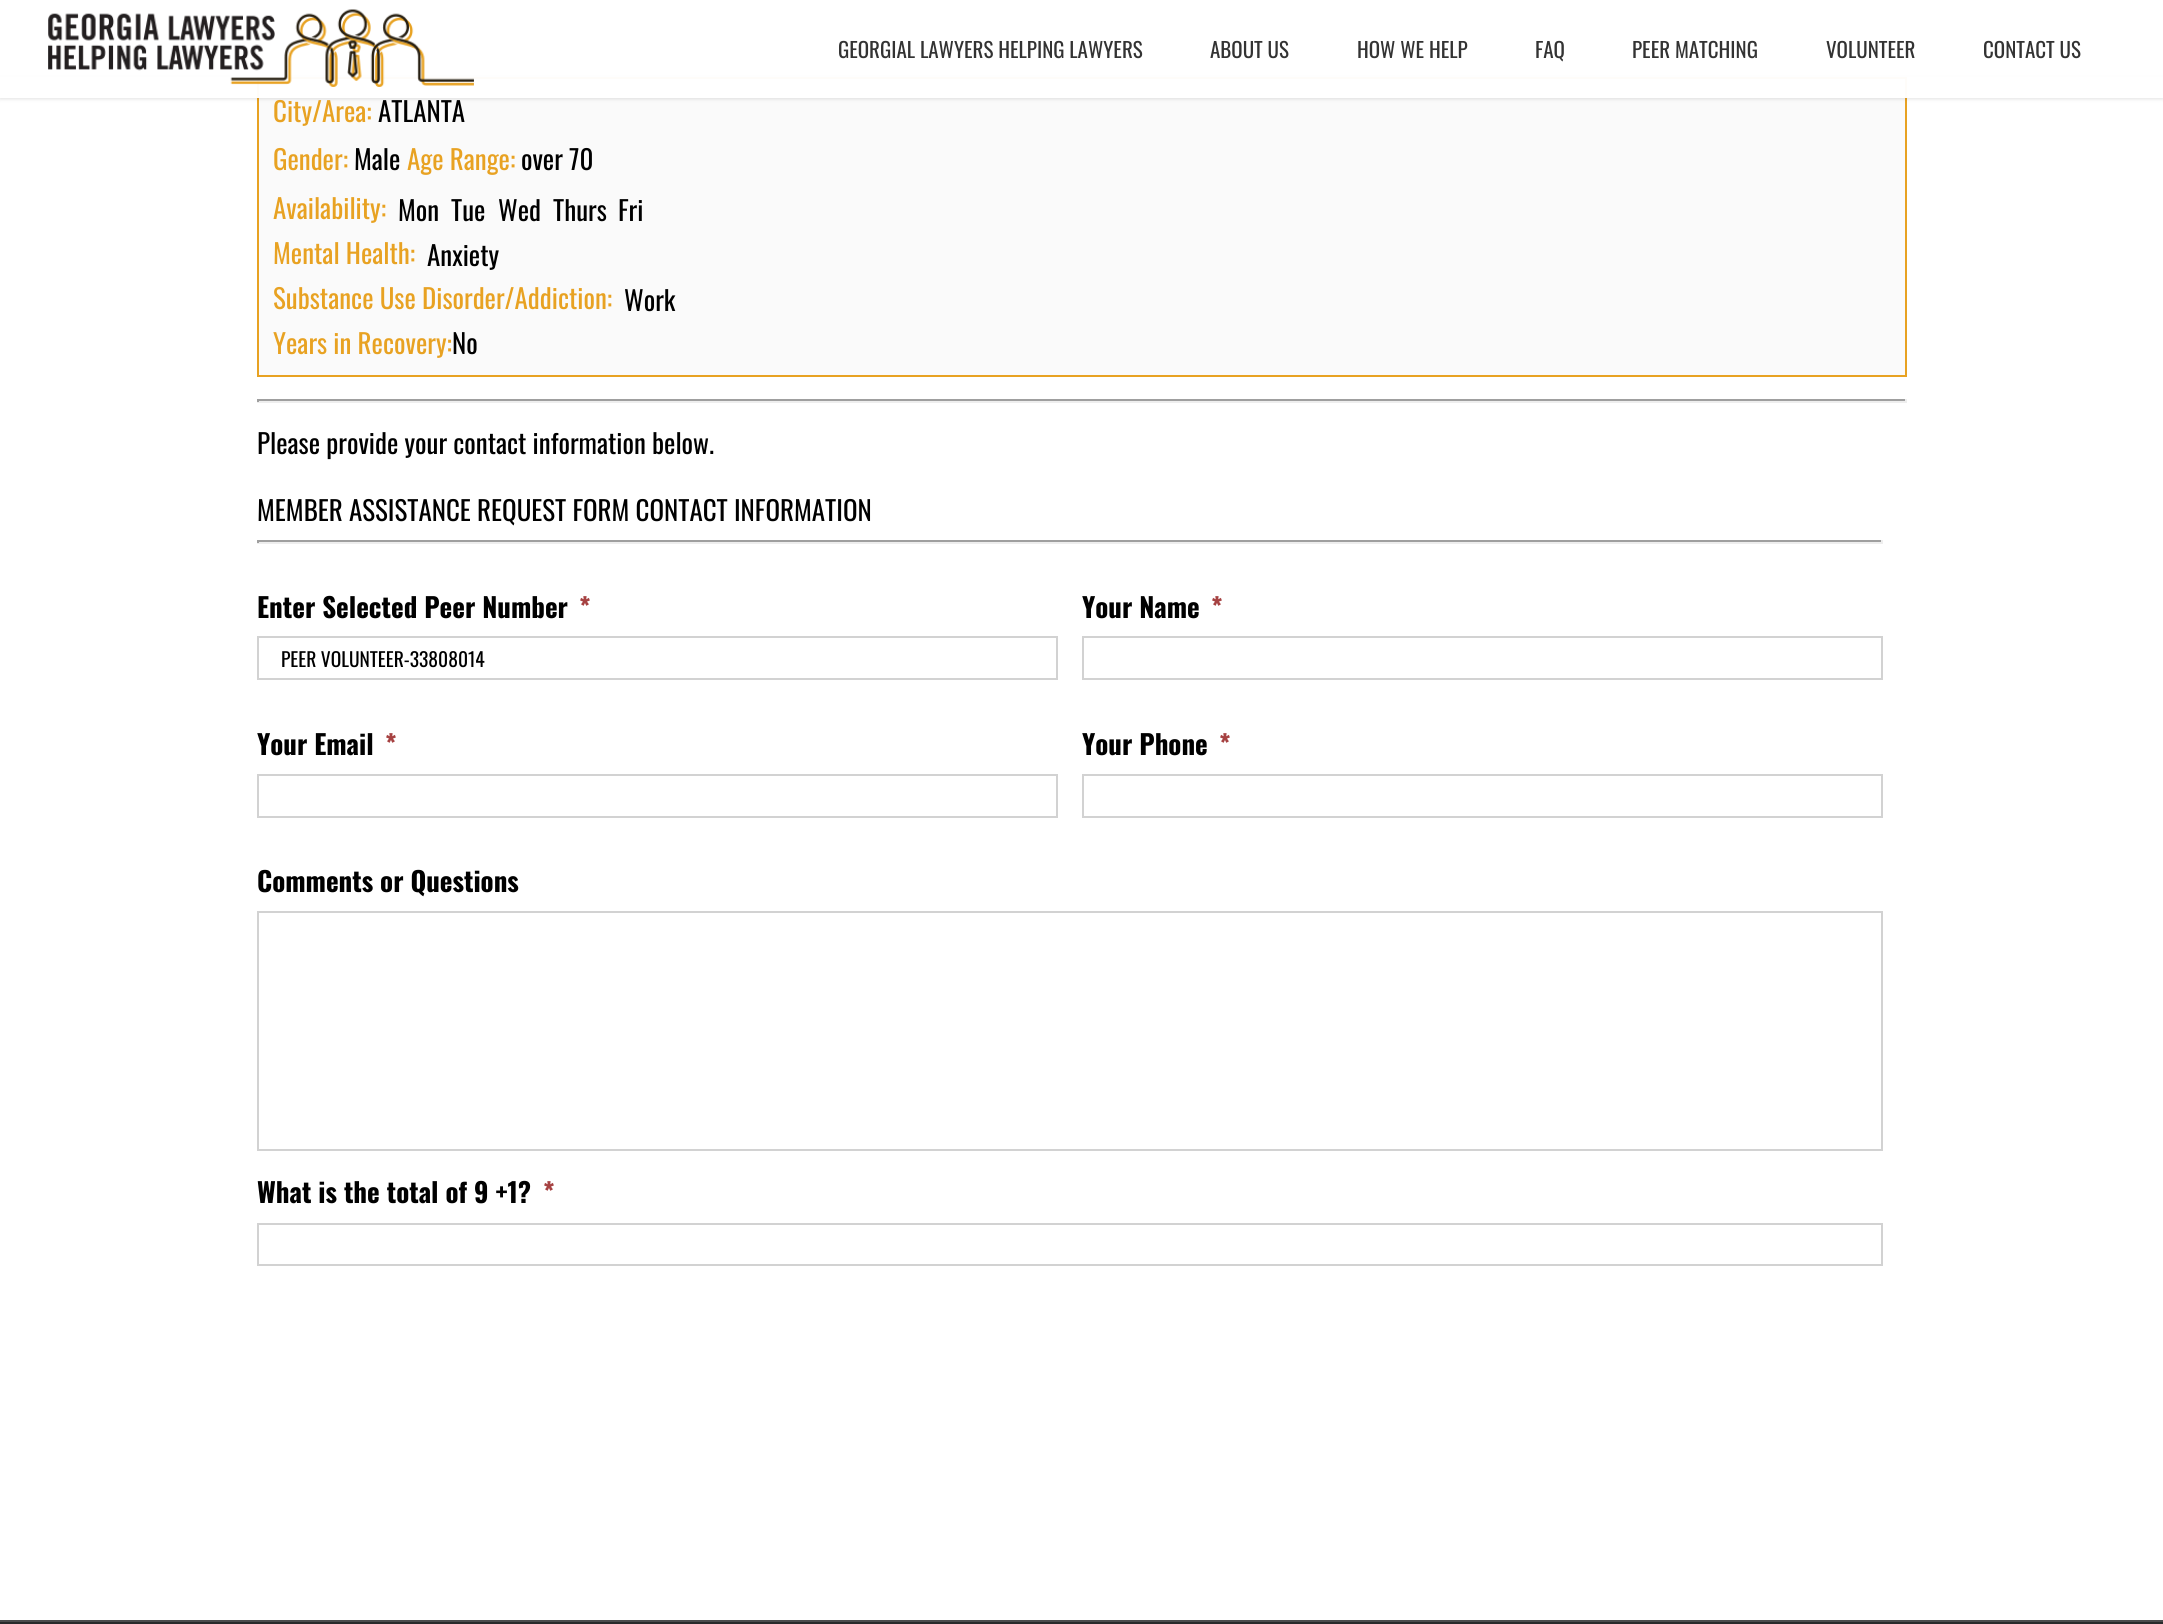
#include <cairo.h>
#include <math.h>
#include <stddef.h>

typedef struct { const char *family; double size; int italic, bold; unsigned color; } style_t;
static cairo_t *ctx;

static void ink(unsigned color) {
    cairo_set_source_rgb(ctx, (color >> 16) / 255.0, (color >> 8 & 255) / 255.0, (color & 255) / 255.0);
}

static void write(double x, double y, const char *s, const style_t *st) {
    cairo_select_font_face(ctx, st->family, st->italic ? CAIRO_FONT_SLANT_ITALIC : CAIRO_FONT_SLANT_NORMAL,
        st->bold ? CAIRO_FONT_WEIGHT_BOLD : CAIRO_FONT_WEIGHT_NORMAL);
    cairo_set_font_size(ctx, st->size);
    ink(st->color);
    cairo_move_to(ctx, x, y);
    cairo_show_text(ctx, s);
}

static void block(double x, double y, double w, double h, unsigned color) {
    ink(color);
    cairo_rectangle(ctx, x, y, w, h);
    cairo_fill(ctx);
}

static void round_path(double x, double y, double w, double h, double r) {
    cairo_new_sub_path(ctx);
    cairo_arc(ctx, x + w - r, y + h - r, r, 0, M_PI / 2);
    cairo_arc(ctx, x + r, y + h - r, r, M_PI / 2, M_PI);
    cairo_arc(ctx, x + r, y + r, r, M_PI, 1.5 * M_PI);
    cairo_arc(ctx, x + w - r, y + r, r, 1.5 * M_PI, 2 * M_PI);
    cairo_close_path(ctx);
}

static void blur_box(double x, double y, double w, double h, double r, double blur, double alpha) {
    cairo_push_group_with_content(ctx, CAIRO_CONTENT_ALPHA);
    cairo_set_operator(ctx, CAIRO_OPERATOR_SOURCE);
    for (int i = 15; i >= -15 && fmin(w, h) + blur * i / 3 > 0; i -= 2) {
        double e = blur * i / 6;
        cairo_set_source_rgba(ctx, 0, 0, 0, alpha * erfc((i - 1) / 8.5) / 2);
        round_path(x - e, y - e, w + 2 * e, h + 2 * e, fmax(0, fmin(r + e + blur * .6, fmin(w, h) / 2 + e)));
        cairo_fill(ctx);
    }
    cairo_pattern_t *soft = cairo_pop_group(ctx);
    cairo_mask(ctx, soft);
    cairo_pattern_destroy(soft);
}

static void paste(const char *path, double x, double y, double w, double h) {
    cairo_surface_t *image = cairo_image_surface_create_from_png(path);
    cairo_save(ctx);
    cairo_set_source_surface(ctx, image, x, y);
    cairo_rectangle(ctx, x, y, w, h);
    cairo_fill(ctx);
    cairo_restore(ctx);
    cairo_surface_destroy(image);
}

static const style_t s1 = {"Oswald", 21, 0, 0, 0x333333};
static const style_t s2 = {"Oswald", 27, 0, 0, 0xe8a222};
static const style_t s3 = {"Oswald", 27, 0, 0, 0x000000};
static const style_t s4 = {"Oswald", 27, 0, 1, 0x000000};
static const style_t s5 = {"Oswald", 27, 0, 1, 0xa64242};
static const style_t s6 = {"Oswald", 19.5, 0, 0, 0x000000};

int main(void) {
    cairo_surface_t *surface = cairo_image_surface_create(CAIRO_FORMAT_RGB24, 2163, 1624);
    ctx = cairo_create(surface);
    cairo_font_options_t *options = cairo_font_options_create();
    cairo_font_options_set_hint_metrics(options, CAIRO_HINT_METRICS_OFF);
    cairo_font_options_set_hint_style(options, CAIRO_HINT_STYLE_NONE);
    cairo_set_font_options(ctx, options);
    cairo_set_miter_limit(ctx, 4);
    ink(0xffffff);
    cairo_paint(ctx);
    block(0, 0, 2163, 75, 0xf6f6f6);
    block(0, 75, 2163, 2, 0xd2d3d4);
    ink(0xfafafa);
    cairo_rectangle(ctx, 258, 78, 1648, 298);
    cairo_fill_preserve(ctx);
    ink(0xe8a222);
    cairo_stroke(ctx);
    cairo_save(ctx);
    cairo_set_fill_rule(ctx, CAIRO_FILL_RULE_EVEN_ODD);
    cairo_new_path(ctx);
    cairo_move_to(ctx, 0, 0);
    cairo_line_to(ctx, 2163, 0);
    cairo_line_to(ctx, 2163, 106);
    cairo_line_to(ctx, 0, 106);
    cairo_close_path(ctx);
    cairo_move_to(ctx, 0, 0);
    cairo_line_to(ctx, 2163, 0);
    cairo_line_to(ctx, 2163, 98);
    cairo_line_to(ctx, 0, 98);
    cairo_close_path(ctx);
    cairo_clip(ctx);
    ink(0x000000);
    blur_box(0, 2, 2163, 97, 0, 2, 0.12);
    cairo_restore(ctx);
    cairo_set_source_rgba(ctx, 1, 1, 1, 0.97);
    cairo_rectangle(ctx, 0, 0, 2163, 98);
    cairo_fill(ctx);
    paste("pic1.png", 48, 9, 426, 78);
    write(838, 58, "GEORGIAL LAWYERS HELPING LAWYERS", &s1);
    write(1210, 58, "ABOUT US", &s1);
    write(1357, 58, "HOW WE HELP", &s1);
    write(1535, 58, "FAQ", &s1);
    write(1632, 58, "PEER MATCHING", &s1);
    write(1826, 58, "VOLUNTEER", &s1);
    write(1983, 58, "CONTACT US", &s1);
    write(273, 122, "City/Area:", &s2);
    write(378, 122, "ATLANTA", &s3);
    write(273, 170, "Gender:", &s2);
    write(354, 170, "Male", &s3);
    write(407, 170, "Age Range:", &s2);
    write(521, 170, "over 70", &s3);
    write(273, 219, "Availability:", &s2);
    write(398, 221, "Mon", &s3);
    write(451, 221, "Tue", &s3);
    write(498, 221, "Wed", &s3);
    write(553, 221, "Thurs", &s3);
    write(618, 221, "Fri", &s3);
    write(273, 264, "Mental Health:", &s2);
    write(427, 266, "Anxiety", &s3);
    write(273, 309, "Substance Use Disorder/Addiction:", &s2);
    write(624, 311, "Work", &s3);
    write(273, 354, "Years in Recovery:", &s2);
    write(452, 354, "No", &s3);
    block(257, 399, 1650, 2, 0x9f9f9f);
    block(1905, 399, 2, 3, 0xeeeeee);
    block(257, 401, 1650, 2, 0xeeeeee);
    block(257, 399, 2, 3, 0x9f9f9f);
    write(257, 454, "Please provide your contact information below.", &s3);
    write(257, 521, "MEMBER ASSISTANCE REQUEST FORM CONTACT INFORMATION", &s3);
    block(257, 540, 1626, 2, 0x9f9f9f);
    block(1881, 540, 2, 3, 0xeeeeee);
    block(257, 542, 1626, 2, 0xeeeeee);
    block(257, 540, 2, 3, 0x9f9f9f);
    write(257, 618, "Enter Selected Peer Number", &s4);
    write(579, 618, "*", &s5);
    cairo_rectangle(ctx, 258, 637, 799, 42);
    ink(0xd2d2d2);
    cairo_stroke(ctx);
    write(281, 667, "PEER VOLUNTEER-33808014", &s6);
    write(1082, 618, "Your Name", &s4);
    write(1211, 618, "*", &s5);
    cairo_rectangle(ctx, 1083, 637, 799, 42);
    ink(0xd2d2d2);
    cairo_stroke(ctx);
    write(257, 755, "Your Email", &s4);
    write(385, 755, "*", &s5);
    cairo_rectangle(ctx, 258, 775, 799, 42);
    ink(0xd2d2d2);
    cairo_stroke(ctx);
    write(1082, 755, "Your Phone", &s4);
    write(1219, 755, "*", &s5);
    cairo_rectangle(ctx, 1083, 775, 799, 42);
    ink(0xd2d2d2);
    cairo_stroke(ctx);
    write(257, 892, "Comments or Questions", &s4);
    cairo_rectangle(ctx, 258, 912, 1624, 238);
    ink(0xd2d2d2);
    cairo_stroke(ctx);
    write(257, 1203, "What is the total of 9 +1?", &s4);
    write(543, 1203, "*", &s5);
    cairo_rectangle(ctx, 258, 1224, 1624, 41);
    ink(0xd2d2d2);
    cairo_stroke(ctx);
    block(0, 1622, 2163, 2, 0x282a2b);
    block(0, 1620, 2163, 2, 0x4b4c4d);
    cairo_surface_write_to_png(surface, "screenshot.png");
    cairo_font_options_destroy(options);
    cairo_destroy(ctx);
    cairo_surface_destroy(surface);
    return 0;
}
